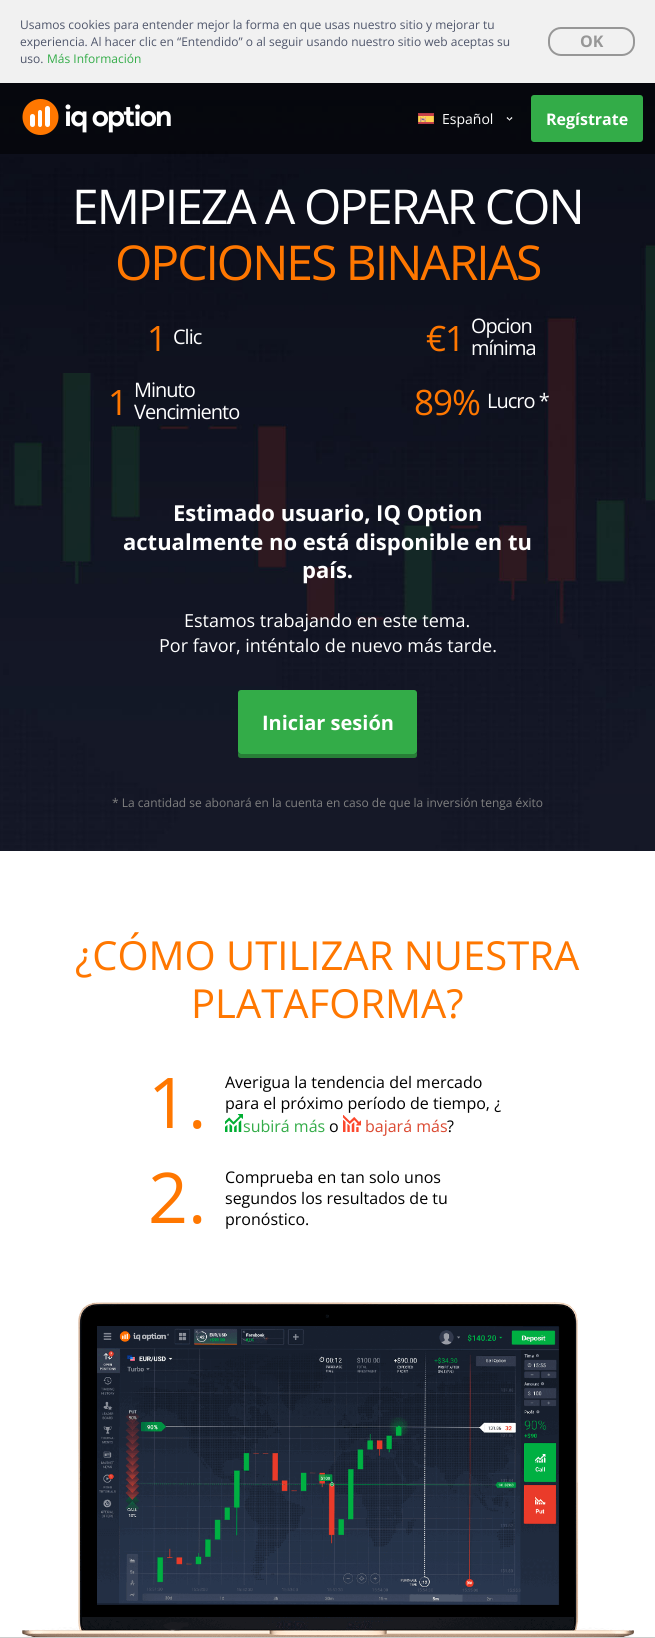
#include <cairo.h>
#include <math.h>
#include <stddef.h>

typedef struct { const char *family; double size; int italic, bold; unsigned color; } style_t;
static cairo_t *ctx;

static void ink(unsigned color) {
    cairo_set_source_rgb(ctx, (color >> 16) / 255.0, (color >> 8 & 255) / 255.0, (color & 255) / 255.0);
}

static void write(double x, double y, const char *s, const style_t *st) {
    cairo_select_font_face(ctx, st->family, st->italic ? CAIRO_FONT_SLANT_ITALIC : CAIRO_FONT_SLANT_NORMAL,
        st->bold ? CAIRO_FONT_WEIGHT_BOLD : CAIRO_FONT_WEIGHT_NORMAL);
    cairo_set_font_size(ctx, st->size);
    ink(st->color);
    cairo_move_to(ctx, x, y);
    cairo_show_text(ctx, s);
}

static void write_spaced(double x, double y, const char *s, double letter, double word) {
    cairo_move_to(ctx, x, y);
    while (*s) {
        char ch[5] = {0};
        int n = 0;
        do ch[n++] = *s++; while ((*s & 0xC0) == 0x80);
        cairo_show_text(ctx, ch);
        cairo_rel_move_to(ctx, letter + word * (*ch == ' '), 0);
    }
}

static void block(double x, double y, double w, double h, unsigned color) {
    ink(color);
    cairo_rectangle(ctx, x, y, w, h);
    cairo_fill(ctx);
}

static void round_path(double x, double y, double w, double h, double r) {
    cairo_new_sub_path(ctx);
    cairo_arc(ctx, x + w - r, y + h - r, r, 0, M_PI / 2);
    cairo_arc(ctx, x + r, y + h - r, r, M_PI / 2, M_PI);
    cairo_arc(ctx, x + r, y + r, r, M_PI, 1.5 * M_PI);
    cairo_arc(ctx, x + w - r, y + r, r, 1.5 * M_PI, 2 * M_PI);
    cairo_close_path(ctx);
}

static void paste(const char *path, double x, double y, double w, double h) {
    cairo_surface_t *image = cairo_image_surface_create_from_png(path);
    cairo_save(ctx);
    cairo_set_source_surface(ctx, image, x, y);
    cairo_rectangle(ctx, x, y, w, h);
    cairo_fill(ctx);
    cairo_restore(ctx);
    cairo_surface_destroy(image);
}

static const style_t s1 = {"Open Sans", 12, 0, 0, 0x4f566b};
static const style_t s2 = {"Open Sans", 12, 0, 0, 0x33ac48};
static const style_t s3 = {"Open Sans", 16, 0, 1, 0x979797};
static const style_t s4 = {"Open Sans", 14, 0, 0, 0xffffff};
static const style_t s5 = {"Open Sans", 16, 0, 1, 0xffffff};
static const style_t s6 = {"Open Sans", 22, 0, 1, 0xffffff};
static const style_t s7 = {"Open Sans", 18, 0, 0, 0xffffff};
static const style_t s8 = {"Open Sans", 20, 0, 1, 0xffffff};
static const style_t s9 = {"Open Sans", 12, 0, 0, 0x808080};
static const style_t s10 = {"Open Sans", 40, 0, 0, 0xff7700};
static const style_t s11 = {"Open Sans", 70, 0, 0, 0xff7700};
static const style_t s12 = {"Open Sans", 16, 0, 0, 0x000000};
static const style_t s13 = {"Open Sans", 16, 0, 0, 0x33ac48};
static const style_t s14 = {"Open Sans", 16, 0, 0, 0xdb4931};

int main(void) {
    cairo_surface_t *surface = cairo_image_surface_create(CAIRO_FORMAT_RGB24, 655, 1638);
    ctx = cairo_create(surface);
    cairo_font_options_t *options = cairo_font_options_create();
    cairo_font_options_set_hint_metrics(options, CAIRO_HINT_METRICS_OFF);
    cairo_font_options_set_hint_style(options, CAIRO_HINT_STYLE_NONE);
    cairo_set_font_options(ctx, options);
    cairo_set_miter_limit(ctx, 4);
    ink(0xffffff);
    cairo_paint(ctx);
    block(0, 0, 655, 83, 0xf1f1f1);
    write(20, 29, "Usamos cookies para entender mejor la forma en que usas nuestro sitio y mejorar tu", &s1);
    write(20, 46, "experiencia. Al hacer clic en “Entendido” o al seguir usando nuestro sitio web aceptas su", &s1);
    write(20, 63, "uso.", &s1);
    write(47, 63, "Más Información", &s2);
    round_path(549, 28, 85, 27, 12);
    ink(0x979797);
    cairo_stroke(ctx);
    write(580, 47, "OK", &s3);
    paste("pic1.png", 0, 83, 655, 768);
    cairo_set_source_rgba(ctx, 0, 0, 0, 0.5);
    cairo_rectangle(ctx, 0, 83, 655, 71);
    cairo_fill(ctx);
    paste("pic2.png", 22, 99, 149, 36);
    paste("pic3.png", 418, 113, 16, 11);
    write(442, 124, "Español", &s4);
    cairo_new_path(ctx);
    cairo_move_to(ctx, 511.5, 117);
    cairo_line_to(ctx, 512.5, 118);
    cairo_line_to(ctx, 509.5, 120.5);
    cairo_line_to(ctx, 509, 120);
    cairo_close_path(ctx);
    cairo_fill(ctx);
    cairo_new_path(ctx);
    cairo_move_to(ctx, 507.5, 117);
    cairo_line_to(ctx, 510, 120);
    cairo_line_to(ctx, 509.5, 120.5);
    cairo_line_to(ctx, 506.5, 118);
    cairo_close_path(ctx);
    cairo_fill(ctx);
    ink(0x33ac48);
    round_path(531, 95, 112, 47, 3);
    cairo_fill(ctx);
    write(546, 125, "Regístrate", &s5);
    cairo_select_font_face(ctx, "Open Sans", CAIRO_FONT_SLANT_NORMAL, CAIRO_FONT_WEIGHT_NORMAL);
    cairo_set_font_size(ctx, 48);
    write_spaced(72, 224, "EMPIEZA A OPERAR CON", -2, 0);
    ink(0xff7700);
    write_spaced(115, 280, "OPCIONES BINARIAS", -2, 0);
    cairo_set_font_size(ctx, 35);
    write_spaced(147, 351, "1", -1, 0);
    cairo_set_font_size(ctx, 20);
    ink(0xffffff);
    write_spaced(173, 344, "Clic", -1, 0);
    cairo_set_font_size(ctx, 35);
    ink(0xff7700);
    write_spaced(426, 351, "€1", -1, 0);
    cairo_set_font_size(ctx, 20);
    ink(0xffffff);
    write_spaced(471, 333, "Opcion", -1, 0);
    write_spaced(471, 355, "mínima", -1, 0);
    cairo_set_font_size(ctx, 35);
    ink(0xff7700);
    write_spaced(108, 415, "1", -1, 0);
    cairo_set_font_size(ctx, 20);
    ink(0xffffff);
    write_spaced(134, 397, "Minuto", -1, 0);
    write_spaced(134, 419, "Vencimiento", -1, 0);
    cairo_set_font_size(ctx, 35);
    ink(0xff7700);
    write_spaced(414, 415, "89%", -1, 0);
    cairo_set_font_size(ctx, 20);
    ink(0xffffff);
    write_spaced(487, 408, "Lucro *", -1, 0);
    write(173, 521, "Estimado usuario, IQ Option", &s6);
    write(123, 550, "actualmente no está disponible en tu", &s6);
    write(302, 578, "país.", &s6);
    write(184, 627, "Estamos trabajando en este tema.", &s7);
    write(159, 652, "Por favor, inténtalo de nuevo más tarde.", &s7);
    ink(0x287f37);
    cairo_new_path(ctx);
    cairo_move_to(ctx, 238, 751);
    cairo_line_to(ctx, 238, 755);
    cairo_curve_to(ctx, 238, 757, 239, 758, 241, 758);
    cairo_line_to(ctx, 414, 758);
    cairo_curve_to(ctx, 416, 758, 417, 757, 417, 755);
    cairo_line_to(ctx, 417, 751);
    cairo_curve_to(ctx, 417, 753, 416, 754, 414, 754);
    cairo_line_to(ctx, 241, 754);
    cairo_curve_to(ctx, 239, 754, 238, 753, 238, 751);
    cairo_close_path(ctx);
    cairo_fill(ctx);
    ink(0x33ac48);
    round_path(238, 690, 179, 64, 3);
    cairo_fill(ctx);
    write(262, 730, "Iniciar sesión", &s8);
    write(112, 807, "* La cantidad se abonará en la cuenta en caso de que la inversión tenga éxito", &s9);
    write(75, 970, "¿CÓMO UTILIZAR NUESTRA", &s10);
    write(191, 1018, "PLATAFORMA?", &s10);
    write(148, 1128, "1.", &s11);
    write(225, 1088, "Averigua la tendencia del mercado", &s12);
    write(225, 1109, "para el próximo período de tiempo, ¿", &s12);
    paste("pic4.png", 225, 1114, 18, 18);
    write(243, 1132, "subirá más", &s13);
    write(329, 1132, "o", &s12);
    paste("pic5.png", 343, 1115, 18, 17);
    write(365, 1132, "bajará más", &s14);
    write(447, 1132, "?", &s12);
    write(148, 1223, "2.", &s11);
    write(225, 1183, "Comprueba en tan solo unos", &s12);
    write(225, 1204, "segundos los resultados de tu", &s12);
    write(225, 1225, "pronóstico.", &s12);
    paste("pic6.png", 22, 1302, 612, 335);
    block(0, 1637, 655, 1, 0xcccccc);
    cairo_surface_write_to_png(surface, "screenshot.png");
    cairo_font_options_destroy(options);
    cairo_destroy(ctx);
    cairo_surface_destroy(surface);
    return 0;
}
